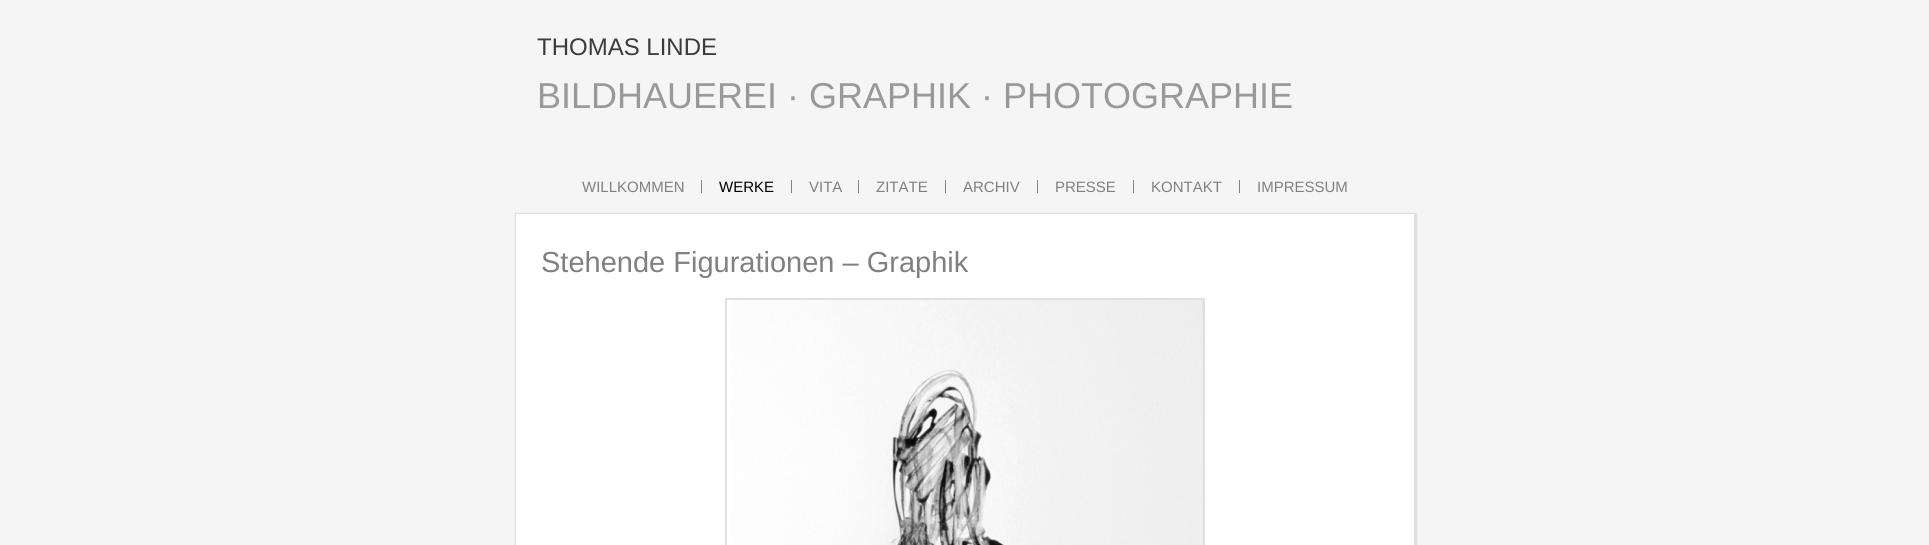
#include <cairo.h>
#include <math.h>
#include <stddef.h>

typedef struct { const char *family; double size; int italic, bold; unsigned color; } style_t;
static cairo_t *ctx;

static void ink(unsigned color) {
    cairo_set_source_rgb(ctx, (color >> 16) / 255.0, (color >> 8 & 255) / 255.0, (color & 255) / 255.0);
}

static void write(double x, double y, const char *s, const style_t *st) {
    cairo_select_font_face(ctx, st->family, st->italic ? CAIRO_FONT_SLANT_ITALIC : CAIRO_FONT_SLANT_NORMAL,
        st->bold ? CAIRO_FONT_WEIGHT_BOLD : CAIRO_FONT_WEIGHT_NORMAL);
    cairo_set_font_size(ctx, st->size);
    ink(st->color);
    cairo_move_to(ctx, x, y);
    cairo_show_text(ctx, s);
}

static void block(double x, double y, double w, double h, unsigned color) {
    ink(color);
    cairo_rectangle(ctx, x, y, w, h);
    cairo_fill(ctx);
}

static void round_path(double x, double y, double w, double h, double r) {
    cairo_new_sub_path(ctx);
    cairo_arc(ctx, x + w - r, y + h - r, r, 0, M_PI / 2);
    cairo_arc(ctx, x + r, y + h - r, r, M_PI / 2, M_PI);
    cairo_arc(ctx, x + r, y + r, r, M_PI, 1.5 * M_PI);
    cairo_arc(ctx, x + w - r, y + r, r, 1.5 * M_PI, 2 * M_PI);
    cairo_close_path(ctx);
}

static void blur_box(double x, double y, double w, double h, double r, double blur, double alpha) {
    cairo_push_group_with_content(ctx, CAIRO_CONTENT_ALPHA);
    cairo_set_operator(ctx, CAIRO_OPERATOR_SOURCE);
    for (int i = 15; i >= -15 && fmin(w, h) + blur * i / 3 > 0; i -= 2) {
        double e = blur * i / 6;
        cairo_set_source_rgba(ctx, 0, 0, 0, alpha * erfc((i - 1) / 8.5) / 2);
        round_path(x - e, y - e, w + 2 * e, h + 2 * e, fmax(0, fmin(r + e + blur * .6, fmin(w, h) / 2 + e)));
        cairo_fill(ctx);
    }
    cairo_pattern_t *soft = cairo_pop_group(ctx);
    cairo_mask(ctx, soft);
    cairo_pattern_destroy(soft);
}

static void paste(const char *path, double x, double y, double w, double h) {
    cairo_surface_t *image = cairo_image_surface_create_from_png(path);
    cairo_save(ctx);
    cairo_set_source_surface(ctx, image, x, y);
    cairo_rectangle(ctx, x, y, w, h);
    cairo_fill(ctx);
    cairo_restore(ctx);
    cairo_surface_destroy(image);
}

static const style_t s1 = {"Liberation Sans", 24, 0, 0, 0x3b3b3b};
static const style_t s2 = {"Liberation Sans", 36, 0, 0, 0x999999};
static const style_t s3 = {"Liberation Sans", 15, 0, 0, 0x808080};
static const style_t s4 = {"Liberation Sans", 15, 0, 0, 0x000000};
static const style_t s5 = {"Liberation Sans", 29, 0, 0, 0x808080};

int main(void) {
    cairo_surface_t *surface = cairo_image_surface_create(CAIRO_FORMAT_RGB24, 1929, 545);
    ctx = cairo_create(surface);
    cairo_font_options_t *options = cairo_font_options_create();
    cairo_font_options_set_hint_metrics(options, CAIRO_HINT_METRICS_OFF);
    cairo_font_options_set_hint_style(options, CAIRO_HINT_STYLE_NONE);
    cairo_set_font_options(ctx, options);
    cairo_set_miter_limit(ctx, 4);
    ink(0xf5f5f5);
    cairo_paint(ctx);
    write(537, 55, "THOMAS LINDE", &s1);
    write(537, 108, "BILDHAUEREI · GRAPHIK · PHOTOGRAPHIE", &s2);
    write(582, 192, "WILLKOMMEN", &s3);
    block(701, 180, 1, 13, 0x828282);
    write(719, 192, "WERKE", &s4);
    block(791, 180, 1, 13, 0x828282);
    write(809, 192, "VITA", &s3);
    block(858, 180, 1, 13, 0x828282);
    write(876, 192, "ZITATE", &s3);
    block(945, 180, 1, 13, 0x828282);
    write(963, 192, "ARCHIV", &s3);
    block(1037, 180, 1, 13, 0x828282);
    write(1055, 192, "PRESSE", &s3);
    block(1133, 180, 1, 13, 0x828282);
    write(1151, 192, "KONTAKT", &s3);
    block(1239, 180, 1, 13, 0x828282);
    write(1257, 192, "IMPRESSUM", &s3);
    ink(0x000000);
    blur_box(515, 213, 902, 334, 0, 0.5, 0.1);
    ink(0xffffff);
    cairo_rectangle(ctx, 515.5, 213.5, 899, 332);
    cairo_fill_preserve(ctx);
    ink(0xe0e0e0);
    cairo_set_line_width(ctx, 1);
    cairo_stroke(ctx);
    write(541, 272, "Stehende Figurationen – Graphik", &s5);
    cairo_rectangle(ctx, 726, 299, 478, 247);
    ink(0xe0e0e0);
    cairo_set_line_width(ctx, 2);
    cairo_stroke(ctx);
    paste("pic1.png", 731, 300, 472, 245);
    cairo_surface_write_to_png(surface, "screenshot.png");
    cairo_font_options_destroy(options);
    cairo_destroy(ctx);
    cairo_surface_destroy(surface);
    return 0;
}
